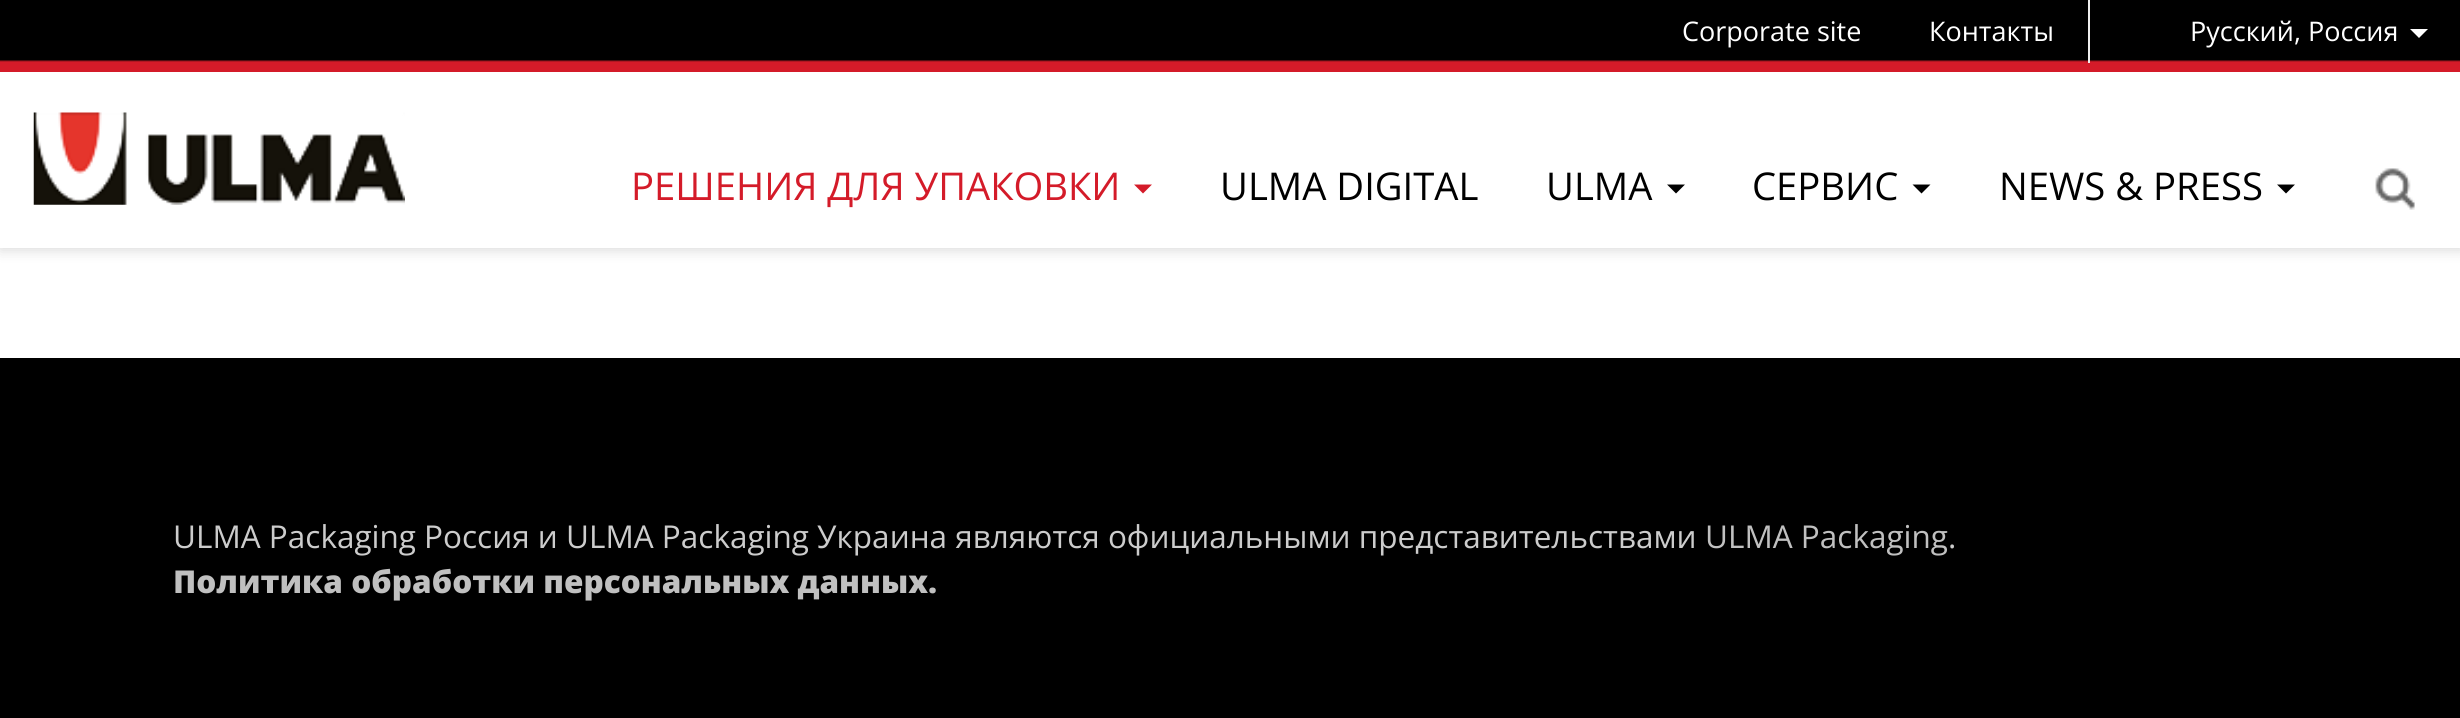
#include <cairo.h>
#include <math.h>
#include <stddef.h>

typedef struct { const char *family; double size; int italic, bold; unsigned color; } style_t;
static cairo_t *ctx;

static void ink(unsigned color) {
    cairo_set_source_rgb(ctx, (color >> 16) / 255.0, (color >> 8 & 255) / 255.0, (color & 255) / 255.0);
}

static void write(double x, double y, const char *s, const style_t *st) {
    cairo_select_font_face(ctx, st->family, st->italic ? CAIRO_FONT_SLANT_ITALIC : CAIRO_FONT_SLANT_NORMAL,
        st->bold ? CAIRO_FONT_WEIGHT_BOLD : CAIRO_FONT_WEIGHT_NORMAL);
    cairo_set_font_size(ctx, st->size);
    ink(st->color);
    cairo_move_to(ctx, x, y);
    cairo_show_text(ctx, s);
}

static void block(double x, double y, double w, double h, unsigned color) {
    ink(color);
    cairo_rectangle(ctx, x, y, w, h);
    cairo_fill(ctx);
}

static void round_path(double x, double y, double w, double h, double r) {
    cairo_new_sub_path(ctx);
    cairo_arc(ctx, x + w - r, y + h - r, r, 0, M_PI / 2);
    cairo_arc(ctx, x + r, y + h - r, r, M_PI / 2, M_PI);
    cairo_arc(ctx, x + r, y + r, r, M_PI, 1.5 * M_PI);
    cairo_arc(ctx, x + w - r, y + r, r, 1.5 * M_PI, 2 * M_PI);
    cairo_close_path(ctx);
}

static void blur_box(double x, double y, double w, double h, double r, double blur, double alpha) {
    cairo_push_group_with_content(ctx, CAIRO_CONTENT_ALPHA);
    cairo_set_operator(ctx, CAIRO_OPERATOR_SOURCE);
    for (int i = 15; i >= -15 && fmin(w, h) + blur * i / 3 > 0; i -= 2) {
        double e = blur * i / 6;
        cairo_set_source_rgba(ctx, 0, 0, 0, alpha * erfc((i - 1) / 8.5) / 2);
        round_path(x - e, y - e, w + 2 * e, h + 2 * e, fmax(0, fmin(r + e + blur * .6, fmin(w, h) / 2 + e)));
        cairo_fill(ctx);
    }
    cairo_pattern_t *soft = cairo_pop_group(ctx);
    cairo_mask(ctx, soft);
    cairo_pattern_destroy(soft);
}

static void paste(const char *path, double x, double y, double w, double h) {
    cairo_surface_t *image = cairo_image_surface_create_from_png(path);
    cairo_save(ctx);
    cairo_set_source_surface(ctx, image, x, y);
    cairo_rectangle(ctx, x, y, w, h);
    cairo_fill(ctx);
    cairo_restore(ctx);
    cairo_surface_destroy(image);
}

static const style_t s1 = {"Open Sans", 27, 0, 0, 0xffffff};
static const style_t s2 = {"Open Sans", 38.25, 0, 0, 0xd41b29};
static const style_t s3 = {"Open Sans", 38.25, 0, 0, 0x000000};
static const style_t s4 = {"Open Sans", 31.5, 0, 0, 0xcccccc};
static const style_t s5 = {"Open Sans", 31.5, 0, 0, 0xc0c0c0};
static const style_t s6 = {"Open Sans ExtraBold", 31.5, 0, 0, 0xc0c0c0};

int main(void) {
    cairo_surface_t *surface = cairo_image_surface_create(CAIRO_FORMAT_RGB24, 2460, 718);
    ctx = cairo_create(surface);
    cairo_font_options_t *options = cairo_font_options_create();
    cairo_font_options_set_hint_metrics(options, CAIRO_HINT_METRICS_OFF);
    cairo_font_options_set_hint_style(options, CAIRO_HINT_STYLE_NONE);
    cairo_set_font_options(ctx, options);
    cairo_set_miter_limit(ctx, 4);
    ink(0xffffff);
    cairo_paint(ctx);
    ink(0x000000);
    blur_box(0, 2, 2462, 248, 0, 7, 0.15);
    block(0, 72, 2460, 176, 0xffffff);
    paste("pic1.png", 0, 0, 2460, 72);
    block(2088, 0, 2, 63, 0xefefef);
    write(1682, 41, "Corporate site", &s1);
    write(1929, 41, "Контакты", &s1);
    write(2190, 41, "Pусский, Россия", &s1);
    cairo_new_path(ctx);
    cairo_move_to(ctx, 2410, 29);
    cairo_line_to(ctx, 2428, 29);
    cairo_line_to(ctx, 2419, 38);
    cairo_close_path(ctx);
    cairo_fill(ctx);
    paste("pic2.png", 33, 112, 372, 93);
    paste("pic3.png", 2375, 168, 40, 42);
    write(631, 200, "РЕШЕНИЯ ДЛЯ УПАКОВКИ", &s2);
    cairo_new_path(ctx);
    cairo_move_to(ctx, 1134, 184.5);
    cairo_line_to(ctx, 1152, 184.5);
    cairo_line_to(ctx, 1143, 193.5);
    cairo_close_path(ctx);
    cairo_fill(ctx);
    write(1220, 200, "ULMA DIGITAL", &s3);
    write(1546, 200, "ULMA", &s3);
    cairo_new_path(ctx);
    cairo_move_to(ctx, 1667, 184.5);
    cairo_line_to(ctx, 1685, 184.5);
    cairo_line_to(ctx, 1676, 193.5);
    cairo_close_path(ctx);
    cairo_fill(ctx);
    write(1752, 200, "СЕРВИС", &s3);
    cairo_new_path(ctx);
    cairo_move_to(ctx, 1912.5, 184.5);
    cairo_line_to(ctx, 1930.5, 184.5);
    cairo_line_to(ctx, 1921.5, 193.5);
    cairo_close_path(ctx);
    cairo_fill(ctx);
    write(1999, 200, "NEWS & PRESS", &s3);
    cairo_new_path(ctx);
    cairo_move_to(ctx, 2277, 184.5);
    cairo_line_to(ctx, 2295, 184.5);
    cairo_line_to(ctx, 2286, 193.5);
    cairo_close_path(ctx);
    cairo_fill(ctx);
    block(0, 358, 2460, 360, 0x000000);
    write(173, 548, "ULMA Packaging Россия и ULMA Packaging Украина являются официальными представительствами", &s4);
    write(1705, 548, "ULMA Packaging", &s5);
    write(1948, 548, ".", &s4);
    write(173, 593, "Политика обработки персональных данных.", &s6);
    cairo_surface_write_to_png(surface, "screenshot.png");
    cairo_font_options_destroy(options);
    cairo_destroy(ctx);
    cairo_surface_destroy(surface);
    return 0;
}
